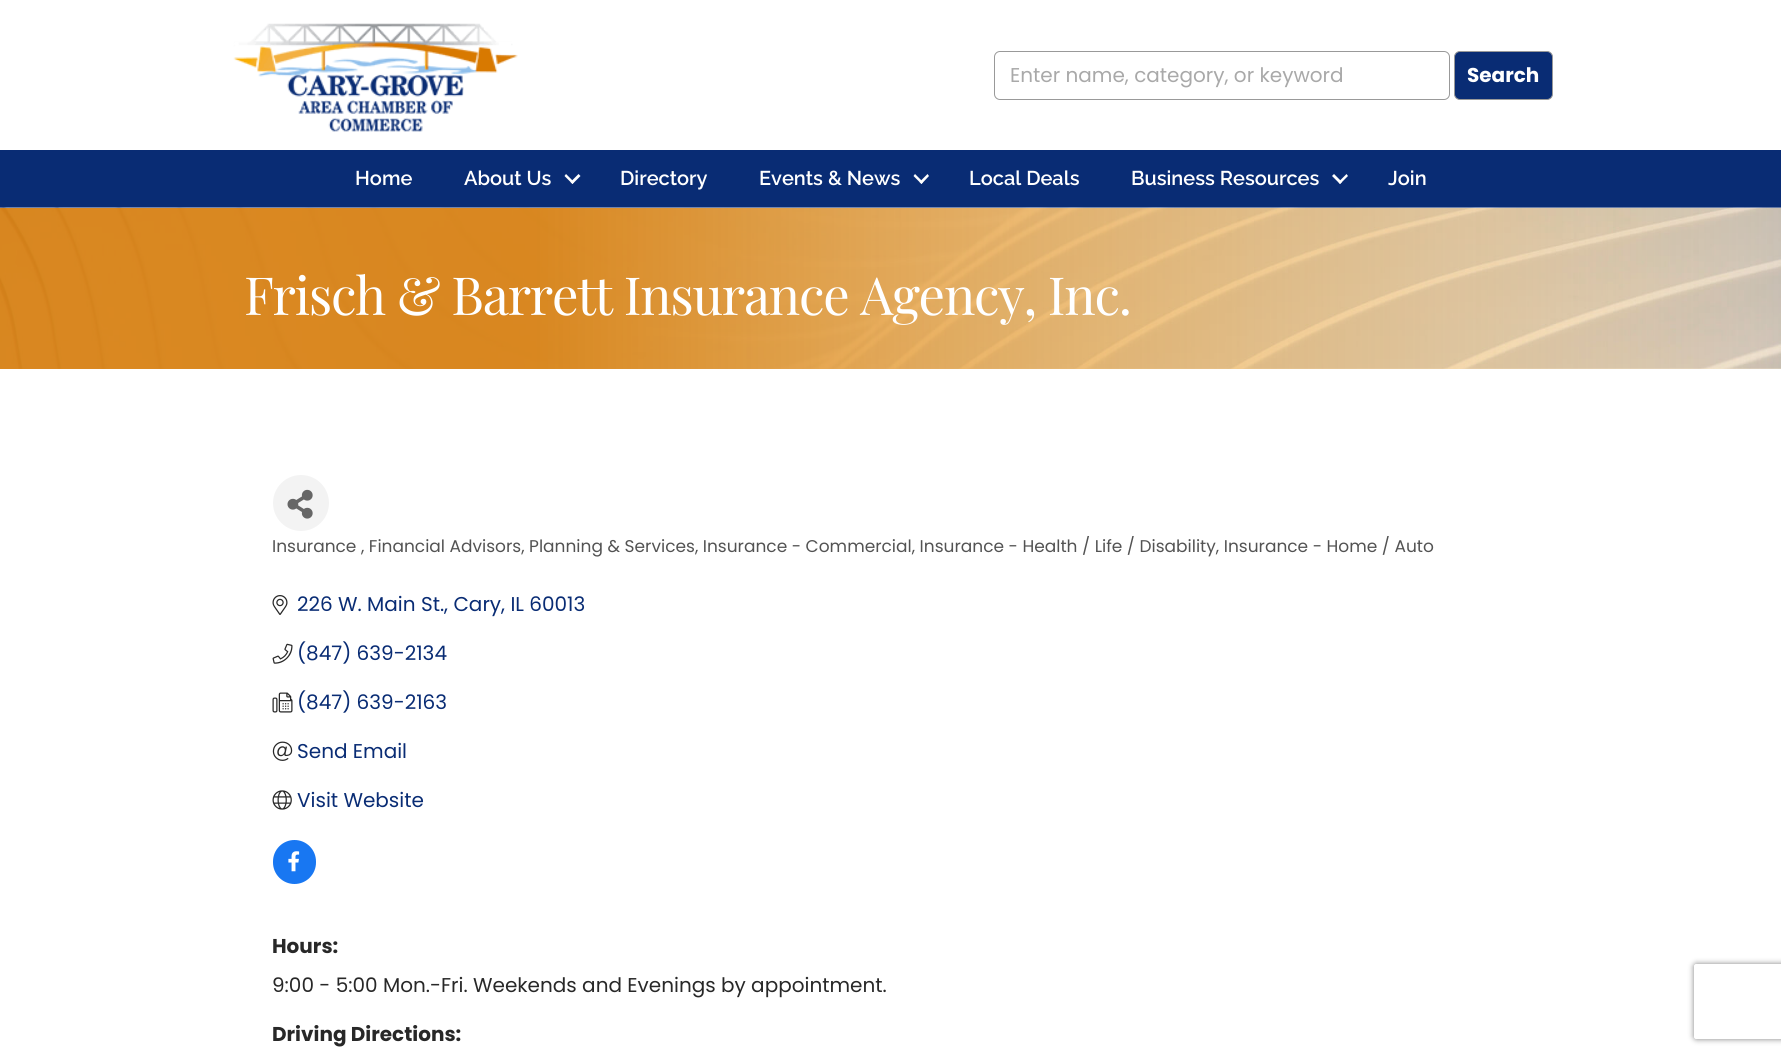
#include <cairo.h>
#include <math.h>
#include <stddef.h>

typedef struct { const char *family; double size; int italic, bold; unsigned color; } style_t;
static cairo_t *ctx;

static void ink(unsigned color) {
    cairo_set_source_rgb(ctx, (color >> 16) / 255.0, (color >> 8 & 255) / 255.0, (color & 255) / 255.0);
}

static void write(double x, double y, const char *s, const style_t *st) {
    cairo_select_font_face(ctx, st->family, st->italic ? CAIRO_FONT_SLANT_ITALIC : CAIRO_FONT_SLANT_NORMAL,
        st->bold ? CAIRO_FONT_WEIGHT_BOLD : CAIRO_FONT_WEIGHT_NORMAL);
    cairo_set_font_size(ctx, st->size);
    ink(st->color);
    cairo_move_to(ctx, x, y);
    cairo_show_text(ctx, s);
}

static void write_spaced(double x, double y, const char *s, double letter, double word) {
    cairo_move_to(ctx, x, y);
    while (*s) {
        char ch[5] = {0};
        int n = 0;
        do ch[n++] = *s++; while ((*s & 0xC0) == 0x80);
        cairo_show_text(ctx, ch);
        cairo_rel_move_to(ctx, letter + word * (*ch == ' '), 0);
    }
}

static void block(double x, double y, double w, double h, unsigned color) {
    ink(color);
    cairo_rectangle(ctx, x, y, w, h);
    cairo_fill(ctx);
}

static void round_path(double x, double y, double w, double h, double r) {
    cairo_new_sub_path(ctx);
    cairo_arc(ctx, x + w - r, y + h - r, r, 0, M_PI / 2);
    cairo_arc(ctx, x + r, y + h - r, r, M_PI / 2, M_PI);
    cairo_arc(ctx, x + r, y + r, r, M_PI, 1.5 * M_PI);
    cairo_arc(ctx, x + w - r, y + r, r, 1.5 * M_PI, 2 * M_PI);
    cairo_close_path(ctx);
}

static void blur_box(double x, double y, double w, double h, double r, double blur, double alpha) {
    cairo_push_group_with_content(ctx, CAIRO_CONTENT_ALPHA);
    cairo_set_operator(ctx, CAIRO_OPERATOR_SOURCE);
    for (int i = 15; i >= -15 && fmin(w, h) + blur * i / 3 > 0; i -= 2) {
        double e = blur * i / 6;
        cairo_set_source_rgba(ctx, 0, 0, 0, alpha * erfc((i - 1) / 8.5) / 2);
        round_path(x - e, y - e, w + 2 * e, h + 2 * e, fmax(0, fmin(r + e + blur * .6, fmin(w, h) / 2 + e)));
        cairo_fill(ctx);
    }
    cairo_pattern_t *soft = cairo_pop_group(ctx);
    cairo_mask(ctx, soft);
    cairo_pattern_destroy(soft);
}

static void paste(const char *path, double x, double y, double w, double h) {
    cairo_surface_t *image = cairo_image_surface_create_from_png(path);
    cairo_save(ctx);
    cairo_set_source_surface(ctx, image, x, y);
    cairo_rectangle(ctx, x, y, w, h);
    cairo_fill(ctx);
    cairo_restore(ctx);
    cairo_surface_destroy(image);
}

static const style_t s1 = {"Poppins", 20, 0, 0, 0xa9a9a9};
static const style_t s2 = {"Poppins", 20, 0, 1, 0xffffff};
static const style_t s3 = {"Raleway Thin", 20, 0, 0, 0xffffff};
static const style_t s4 = {"Poppins", 17, 0, 0, 0x535353};
static const style_t s5 = {"Poppins", 20, 0, 0, 0x092c74};
static const style_t s6 = {"Poppins", 20, 0, 1, 0x282828};
static const style_t s7 = {"Poppins", 20, 0, 0, 0x282828};

int main(void) {
    cairo_surface_t *surface = cairo_image_surface_create(CAIRO_FORMAT_RGB24, 1781, 1056);
    ctx = cairo_create(surface);
    cairo_font_options_t *options = cairo_font_options_create();
    cairo_font_options_set_hint_metrics(options, CAIRO_HINT_METRICS_OFF);
    cairo_font_options_set_hint_style(options, CAIRO_HINT_STYLE_NONE);
    cairo_set_font_options(ctx, options);
    cairo_set_miter_limit(ctx, 4);
    cairo_pattern_t *gradient;
    ink(0xffffff);
    cairo_paint(ctx);
    paste("pic1.png", 233, 23, 285, 109);
    round_path(994.5, 51.5, 455, 48, 5.5);
    ink(0x999999);
    cairo_set_line_width(ctx, 1);
    cairo_stroke(ctx);
    write(1010, 82, "Enter name, category, or keyword", &s1);
    ink(0x092c74);
    round_path(1454.5, 51.5, 98, 48, 5.5);
    cairo_fill_preserve(ctx);
    ink(0x999999);
    cairo_stroke(ctx);
    write(1467, 82, "Search", &s2);
    block(0, 150, 1781, 58, 0x092c74);
    write(355, 185, "Home", &s3);
    write(464, 185, "About Us", &s3);
    cairo_new_path(ctx);
    cairo_move_to(ctx, 578.5, 174);
    cairo_line_to(ctx, 580.5, 176);
    cairo_line_to(ctx, 572.5, 184);
    cairo_line_to(ctx, 570.5, 182);
    cairo_close_path(ctx);
    cairo_fill(ctx);
    cairo_new_path(ctx);
    cairo_move_to(ctx, 566, 174);
    cairo_line_to(ctx, 574, 182);
    cairo_line_to(ctx, 572.5, 184);
    cairo_line_to(ctx, 564.5, 176);
    cairo_close_path(ctx);
    cairo_fill(ctx);
    write(620, 185, "Directory", &s3);
    write(759, 185, "Events & News", &s3);
    cairo_new_path(ctx);
    cairo_move_to(ctx, 927.5, 174);
    cairo_line_to(ctx, 929, 176);
    cairo_line_to(ctx, 921.5, 184);
    cairo_line_to(ctx, 919.5, 182);
    cairo_close_path(ctx);
    cairo_fill(ctx);
    cairo_new_path(ctx);
    cairo_move_to(ctx, 915, 174);
    cairo_line_to(ctx, 923, 182);
    cairo_line_to(ctx, 921.5, 184);
    cairo_line_to(ctx, 913.5, 176);
    cairo_close_path(ctx);
    cairo_fill(ctx);
    write(969, 185, "Local Deals", &s3);
    write(1131, 185, "Business Resources", &s3);
    cairo_new_path(ctx);
    cairo_move_to(ctx, 1346.5, 174);
    cairo_line_to(ctx, 1348, 176);
    cairo_line_to(ctx, 1340, 184);
    cairo_line_to(ctx, 1338.5, 182);
    cairo_close_path(ctx);
    cairo_fill(ctx);
    cairo_new_path(ctx);
    cairo_move_to(ctx, 1334, 174);
    cairo_line_to(ctx, 1342, 182);
    cairo_line_to(ctx, 1340, 184);
    cairo_line_to(ctx, 1332, 176);
    cairo_close_path(ctx);
    cairo_fill(ctx);
    write(1388, 185, "Join", &s3);
    paste("pic2.png", 0, 207, 1781, 162);
    gradient = cairo_pattern_create_linear(0, 288, 1781, 288);
    cairo_pattern_add_color_stop_rgba(gradient, 0.3, 0.847, 0.475, 0, 0.86);
    cairo_pattern_add_color_stop_rgba(gradient, 1, 0.957, 0.682, 0.204, 0.21);
    cairo_set_source(ctx, gradient);
    cairo_pattern_destroy(gradient);
    cairo_rectangle(ctx, 0, 208, 1781, 161);
    cairo_fill(ctx);
    cairo_select_font_face(ctx, "Playfair Display", CAIRO_FONT_SLANT_NORMAL, CAIRO_FONT_WEIGHT_NORMAL);
    cairo_set_font_size(ctx, 52.5);
    ink(0xffffff);
    write_spaced(244, 315, "Frisch & Barrett Insurance Agency, Inc.", -1.25, 0);
    ink(0xf3f3f3);
    cairo_new_path(ctx);
    cairo_arc(ctx, 301, 503, 28, 0, 2 * M_PI);
    cairo_fill(ctx);
    paste("pic3.png", 287, 489, 26, 30);
    write(272, 552, "Insurance , Financial Advisors, Planning & Services, Insurance - Commercial, Insurance - Health / Life / Disability, Insurance - Home / Auto", &s4);
    paste("pic4.png", 272, 595, 16, 20);
    write(297, 611, "226 W. Main St., Cary, IL 60013", &s5);
    paste("pic5.png", 272, 643, 21, 21);
    write(297, 660, "(847) 639-2134", &s5);
    paste("pic6.png", 272, 692, 21, 21);
    write(297, 709, "(847) 639-2163", &s5);
    paste("pic7.png", 272, 741, 21, 20);
    write(297, 758, "Send Email", &s5);
    paste("pic8.png", 272, 790, 20, 20);
    write(297, 807, "Visit Website", &s5);
    ink(0x1877f2);
    round_path(273, 840, 43, 44, 21.5);
    cairo_fill(ctx);
    paste("pic9.png", 288, 851, 12, 21);
    write(272, 953, "Hours:", &s6);
    write(272, 992, "9:00 - 5:00 Mon.-Fri. Weekends and Evenings by appointment.", &s7);
    write(272, 1041, "Driving Directions:", &s6);
    cairo_save(ctx);
    cairo_set_fill_rule(ctx, CAIRO_FILL_RULE_EVEN_ODD);
    cairo_new_path(ctx);
    cairo_move_to(ctx, 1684, 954);
    cairo_line_to(ctx, 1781, 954);
    cairo_line_to(ctx, 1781, 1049);
    cairo_line_to(ctx, 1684, 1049);
    cairo_close_path(ctx);
    cairo_move_to(ctx, 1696.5, 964);
    cairo_line_to(ctx, 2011.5, 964);
    cairo_curve_to(ctx, 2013, 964, 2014, 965, 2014, 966.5);
    cairo_line_to(ctx, 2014, 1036.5);
    cairo_curve_to(ctx, 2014, 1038, 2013, 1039, 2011.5, 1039);
    cairo_line_to(ctx, 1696.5, 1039);
    cairo_curve_to(ctx, 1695, 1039, 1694, 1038, 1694, 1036.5);
    cairo_line_to(ctx, 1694, 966.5);
    cairo_curve_to(ctx, 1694, 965, 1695, 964, 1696.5, 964);
    cairo_close_path(ctx);
    cairo_clip(ctx);
    ink(0x808080);
    blur_box(1694, 964, 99, 75, 2.5, 3, 1);
    cairo_restore(ctx);
    cairo_surface_write_to_png(surface, "screenshot.png");
    cairo_font_options_destroy(options);
    cairo_destroy(ctx);
    cairo_surface_destroy(surface);
    return 0;
}
